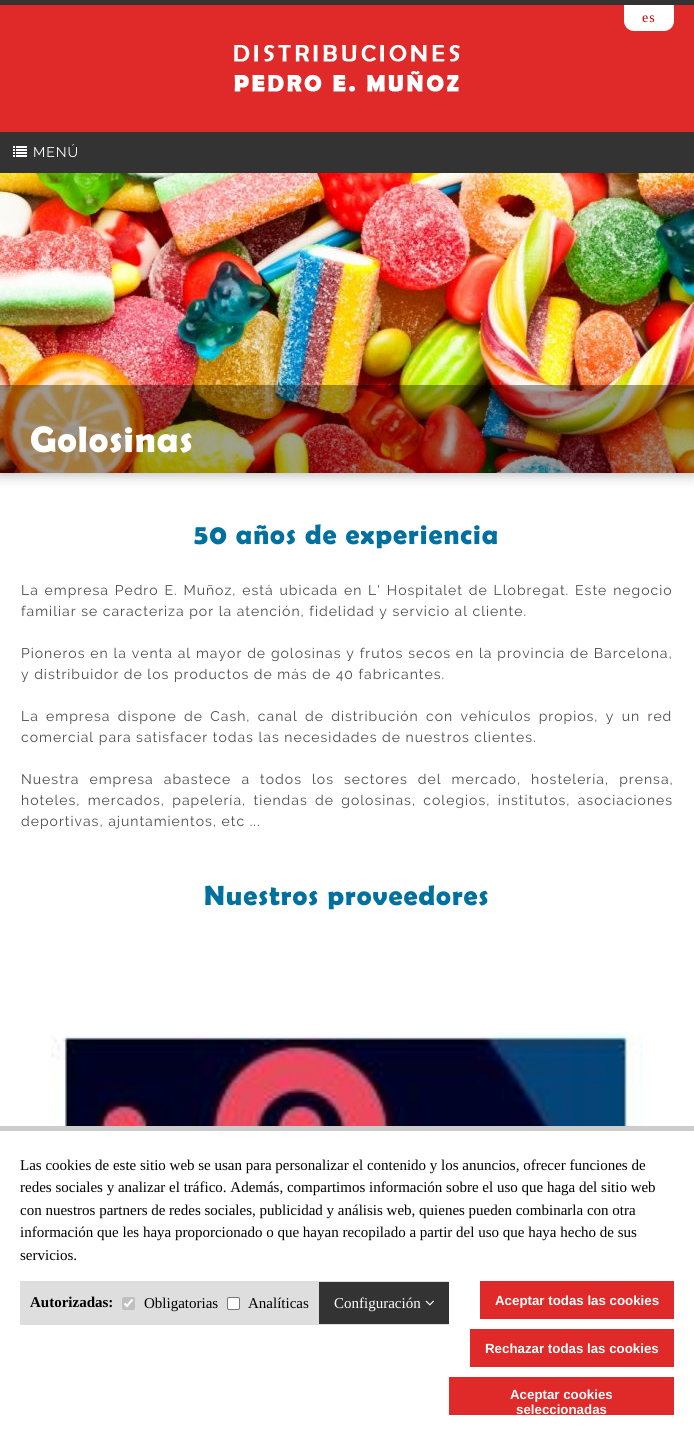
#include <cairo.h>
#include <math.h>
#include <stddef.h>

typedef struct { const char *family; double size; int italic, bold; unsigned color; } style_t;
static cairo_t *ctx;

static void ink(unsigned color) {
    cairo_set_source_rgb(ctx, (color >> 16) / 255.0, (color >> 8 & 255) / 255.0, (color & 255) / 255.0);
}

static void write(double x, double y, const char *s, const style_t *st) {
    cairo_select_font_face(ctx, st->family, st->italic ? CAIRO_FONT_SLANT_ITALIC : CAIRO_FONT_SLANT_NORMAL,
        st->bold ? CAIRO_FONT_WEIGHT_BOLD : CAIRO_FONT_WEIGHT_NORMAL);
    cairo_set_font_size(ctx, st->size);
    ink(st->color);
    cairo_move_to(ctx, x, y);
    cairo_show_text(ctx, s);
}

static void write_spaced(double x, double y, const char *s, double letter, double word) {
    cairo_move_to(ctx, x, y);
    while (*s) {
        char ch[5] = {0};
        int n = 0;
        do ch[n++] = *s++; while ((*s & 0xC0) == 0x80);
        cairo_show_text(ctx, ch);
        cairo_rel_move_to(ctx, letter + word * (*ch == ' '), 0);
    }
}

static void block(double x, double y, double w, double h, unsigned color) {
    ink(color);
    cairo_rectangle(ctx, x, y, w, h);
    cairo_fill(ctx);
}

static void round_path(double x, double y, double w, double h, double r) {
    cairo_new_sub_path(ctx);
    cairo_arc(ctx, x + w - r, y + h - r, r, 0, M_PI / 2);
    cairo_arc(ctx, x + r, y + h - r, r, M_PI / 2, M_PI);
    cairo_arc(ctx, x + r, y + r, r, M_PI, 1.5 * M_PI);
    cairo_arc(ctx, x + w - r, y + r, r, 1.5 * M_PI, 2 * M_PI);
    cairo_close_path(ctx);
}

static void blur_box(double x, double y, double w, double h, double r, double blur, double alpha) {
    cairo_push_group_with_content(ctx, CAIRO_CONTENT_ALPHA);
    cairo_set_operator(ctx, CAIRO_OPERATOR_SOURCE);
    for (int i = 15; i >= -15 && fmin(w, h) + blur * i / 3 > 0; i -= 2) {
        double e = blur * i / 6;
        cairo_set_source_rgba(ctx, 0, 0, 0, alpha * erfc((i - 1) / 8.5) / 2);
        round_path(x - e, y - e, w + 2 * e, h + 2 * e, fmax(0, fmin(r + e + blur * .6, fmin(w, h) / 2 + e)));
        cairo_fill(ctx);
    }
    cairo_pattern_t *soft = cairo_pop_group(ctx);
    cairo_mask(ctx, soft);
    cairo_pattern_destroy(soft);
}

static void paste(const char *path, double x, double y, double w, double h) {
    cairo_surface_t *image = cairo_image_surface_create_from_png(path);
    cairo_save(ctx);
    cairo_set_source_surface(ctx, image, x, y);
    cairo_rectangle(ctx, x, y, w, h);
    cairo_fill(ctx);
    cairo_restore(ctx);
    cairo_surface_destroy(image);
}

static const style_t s1 = {"Liberation Serif", 15, 0, 0, 0x000000};
static const style_t s2 = {"Liberation Serif", 15, 0, 1, 0x000000};
static const style_t s3 = {"Liberation Serif", 15, 0, 0, 0xffffff};
static const style_t s4 = {"Liberation Sans", 13.3, 0, 1, 0xffffff};

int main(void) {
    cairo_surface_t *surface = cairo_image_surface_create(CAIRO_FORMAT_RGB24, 694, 1435);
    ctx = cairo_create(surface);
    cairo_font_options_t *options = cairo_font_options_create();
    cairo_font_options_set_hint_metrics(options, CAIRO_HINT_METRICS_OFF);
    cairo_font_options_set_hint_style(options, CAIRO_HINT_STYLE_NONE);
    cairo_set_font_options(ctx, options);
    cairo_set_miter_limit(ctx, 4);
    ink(0xffffff);
    cairo_paint(ctx);
    block(0, 0, 694, 5, 0x333333);
    block(0, 5, 694, 127, 0xe02929);
    ink(0xffffff);
    cairo_new_path(ctx);
    cairo_move_to(ctx, 624, 5);
    cairo_line_to(ctx, 674, 5);
    cairo_line_to(ctx, 674, 21);
    cairo_curve_to(ctx, 674, 26.5, 669.5, 31, 664, 31);
    cairo_line_to(ctx, 634, 31);
    cairo_curve_to(ctx, 628.5, 31, 624, 26.5, 624, 21);
    cairo_close_path(ctx);
    cairo_fill(ctx);
    cairo_select_font_face(ctx, "Liberation Serif", CAIRO_FONT_SLANT_NORMAL, CAIRO_FONT_WEIGHT_NORMAL);
    cairo_set_font_size(ctx, 14);
    ink(0xbe0000);
    write_spaced(642, 22, "es", 1, 0);
    paste("pic1.png", 234, 45, 226, 47);
    ink(0x000000);
    blur_box(0, 173, 694, 300, 0, 7, 0.35);
    block(0, 132, 694, 41, 0x333333);
    paste("pic2.png", 13, 146, 14, 11);
    cairo_select_font_face(ctx, "Raleway", CAIRO_FONT_SLANT_NORMAL, CAIRO_FONT_WEIGHT_NORMAL);
    ink(0xffffff);
    write_spaced(33, 157, "MENÚ", 1, 0);
    paste("pic3.png", 0, 173, 694, 300);
    cairo_set_source_rgba(ctx, 0, 0, 0, 0.37);
    cairo_rectangle(ctx, 0, 385, 694, 88);
    cairo_fill(ctx);
    cairo_select_font_face(ctx, "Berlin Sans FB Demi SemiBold", CAIRO_FONT_SLANT_NORMAL, CAIRO_FONT_WEIGHT_NORMAL);
    cairo_set_font_size(ctx, 37);
    ink(0xffffff);
    write_spaced(30, 452, "Golosinas", 1, 0);
    cairo_set_font_size(ctx, 28);
    ink(0x00709e);
    write_spaced(194, 544, "50 años de experiencia", 1, 0);
    cairo_select_font_face(ctx, "Raleway", CAIRO_FONT_SLANT_NORMAL, CAIRO_FONT_WEIGHT_NORMAL);
    cairo_set_font_size(ctx, 14);
    ink(0x4b4b4b);
    write_spaced(21, 595, "La empresa Pedro E. Muñoz, está ubicada en L' Hospitalet de Llobregat. Este negocio", 1, 1.25);
    write_spaced(21, 616, "familiar se caracteriza por la atención, fidelidad y servicio al cliente.", 1, 0);
    write_spaced(21, 658, "Pioneros en la venta al mayor de golosinas y frutos secos en la provincia de Barcelona,", 1, 0.25);
    write_spaced(21, 679, "y distribuidor de los productos de más de 40 fabricantes.", 1, 0);
    write_spaced(21, 721, "La empresa dispone de Cash, canal de distribución con vehículos propios, y un red", 1, 2.75);
    write_spaced(21, 742, "comercial para satisfacer todas las necesidades de nuestros clientes.", 1, 0);
    write_spaced(21, 784, "Nuestra empresa abastece a todos los sectores del mercado, hostelería, prensa,", 1, 5.5);
    write_spaced(21, 805, "hoteles, mercados, papelería, tiendas de golosinas, colegios, institutos, asociaciones", 1, 2.75);
    write_spaced(21, 826, "deportivas, ajuntamientos, etc ...", 1, 0);
    cairo_select_font_face(ctx, "Berlin Sans FB Demi SemiBold", CAIRO_FONT_SLANT_NORMAL, CAIRO_FONT_WEIGHT_NORMAL);
    cairo_set_font_size(ctx, 28);
    ink(0x00709e);
    write_spaced(204, 905, "Nuestros proveedores", 1, 0);
    paste("pic4.png", 51, 1032, 592, 94);
    block(0, 1126, 694, 5, 0xcccccc);
    write(20, 1170, "Las cookies de este sitio web se usan para personalizar el contenido y los anuncios, ofrecer funciones de", &s1);
    write(20, 1192, "redes sociales y analizar el tráfico. Además, compartimos información sobre el uso que haga del sitio web", &s1);
    write(20, 1215, "con nuestros partners de redes sociales, publicidad y análisis web, quienes pueden combinarla con otra", &s1);
    write(20, 1237, "información que les haya proporcionado o que hayan recopilado a partir del uso que haya hecho de sus", &s1);
    write(20, 1260, "servicios.", &s1);
    block(20, 1281, 429, 44, 0xdedede);
    write(30, 1307, "Autorizadas:", &s2);
    ink(0xbfbfbf);
    round_path(122, 1297, 13, 13, 2);
    cairo_fill(ctx);
    cairo_new_path(ctx);
    cairo_move_to(ctx, 124.5, 1303.5);
    cairo_line_to(ctx, 127, 1306);
    cairo_line_to(ctx, 132.5, 1299.5);
    ink(0xffffff);
    cairo_set_line_width(ctx, 2.1);
    cairo_stroke(ctx);
    write(144, 1308, "Obligatorias", &s1);
    ink(0xffffff);
    round_path(227.5, 1297.5, 12, 12, 1.5);
    cairo_fill_preserve(ctx);
    ink(0x767676);
    cairo_set_line_width(ctx, 1);
    cairo_stroke(ctx);
    write(248, 1308, "Analíticas", &s1);
    block(319, 1282, 130, 42, 0x333333);
    write(334, 1308, "Configuración", &s3);
    paste("pic5.png", 425, 1300, 9, 6);
    block(480, 1281, 194, 38, 0xe02929);
    write(495, 1305, "Aceptar todas las cookies", &s4);
    block(470, 1329, 204, 38, 0xe02929);
    write(485, 1353, "Rechazar todas las cookies", &s4);
    block(449, 1377, 225, 38, 0xe02929);
    write(510, 1399, "Aceptar cookies", &s4);
    write(516, 1414, "seleccionadas", &s4);
    cairo_surface_write_to_png(surface, "screenshot.png");
    cairo_font_options_destroy(options);
    cairo_destroy(ctx);
    cairo_surface_destroy(surface);
    return 0;
}
